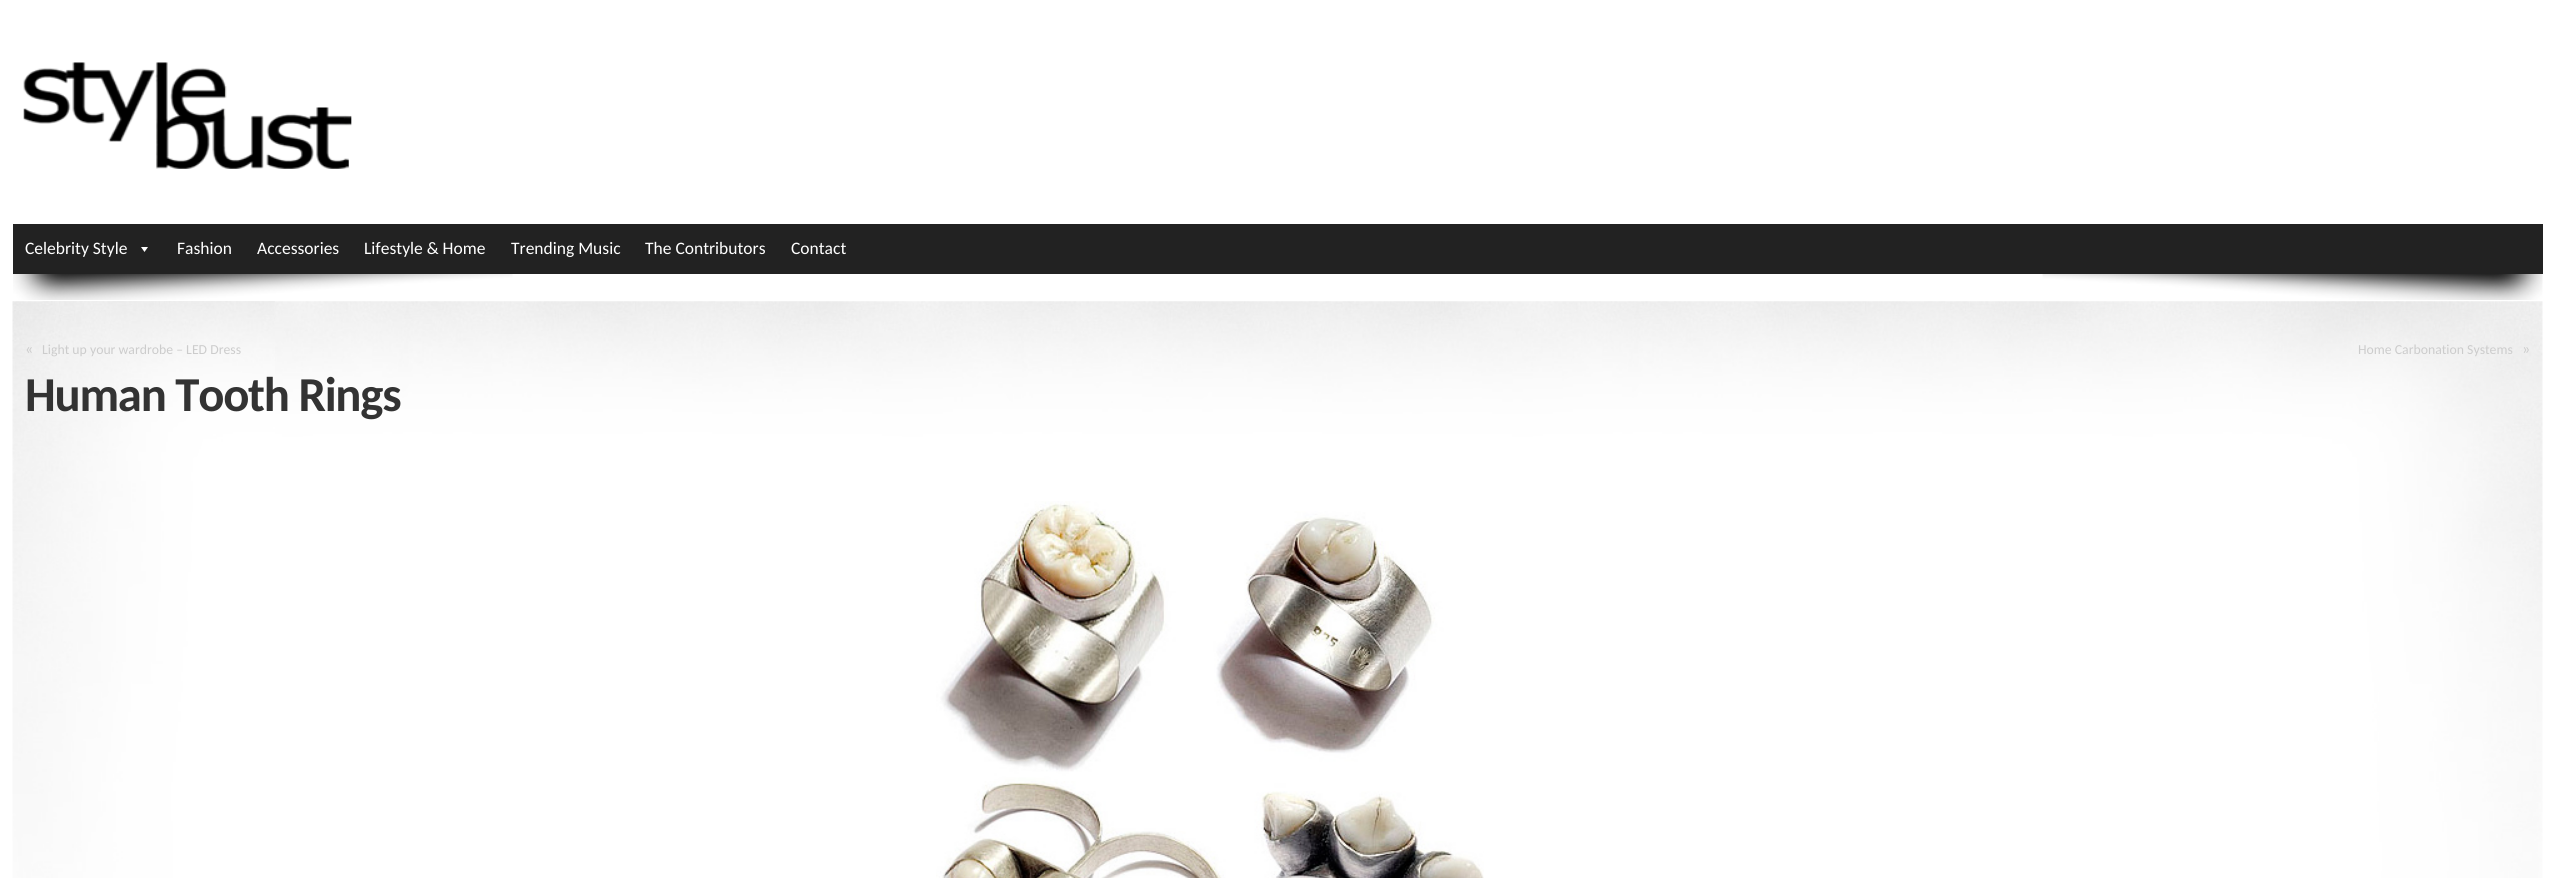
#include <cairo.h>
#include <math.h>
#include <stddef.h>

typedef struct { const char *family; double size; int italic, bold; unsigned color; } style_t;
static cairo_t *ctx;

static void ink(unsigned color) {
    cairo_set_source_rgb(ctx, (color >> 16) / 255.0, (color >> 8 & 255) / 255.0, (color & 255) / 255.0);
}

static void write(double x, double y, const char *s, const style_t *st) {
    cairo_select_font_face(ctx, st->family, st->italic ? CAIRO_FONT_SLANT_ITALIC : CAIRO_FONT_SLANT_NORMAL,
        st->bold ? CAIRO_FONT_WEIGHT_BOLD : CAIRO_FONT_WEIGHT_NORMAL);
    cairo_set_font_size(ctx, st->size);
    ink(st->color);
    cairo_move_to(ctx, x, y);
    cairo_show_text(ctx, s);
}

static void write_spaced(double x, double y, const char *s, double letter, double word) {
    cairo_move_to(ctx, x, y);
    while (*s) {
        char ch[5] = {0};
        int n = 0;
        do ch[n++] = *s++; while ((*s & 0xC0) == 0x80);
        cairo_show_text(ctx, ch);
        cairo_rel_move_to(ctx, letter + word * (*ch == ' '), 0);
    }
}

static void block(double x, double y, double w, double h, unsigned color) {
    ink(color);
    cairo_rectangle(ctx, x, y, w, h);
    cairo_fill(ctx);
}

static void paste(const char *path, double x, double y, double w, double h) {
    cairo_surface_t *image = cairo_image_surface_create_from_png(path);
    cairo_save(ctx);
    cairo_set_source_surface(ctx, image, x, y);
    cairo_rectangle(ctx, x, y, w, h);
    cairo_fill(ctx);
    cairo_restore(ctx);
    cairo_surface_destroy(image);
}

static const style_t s1 = {"Carlito", 17.5, 0, 0, 0xffffff};
static const style_t s2 = {"Carlito", 16, 0, 0, 0xcccccc};
static const style_t s3 = {"Carlito", 13.75, 0, 0, 0xcccccc};

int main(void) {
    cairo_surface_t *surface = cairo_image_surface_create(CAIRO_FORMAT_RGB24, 2555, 878);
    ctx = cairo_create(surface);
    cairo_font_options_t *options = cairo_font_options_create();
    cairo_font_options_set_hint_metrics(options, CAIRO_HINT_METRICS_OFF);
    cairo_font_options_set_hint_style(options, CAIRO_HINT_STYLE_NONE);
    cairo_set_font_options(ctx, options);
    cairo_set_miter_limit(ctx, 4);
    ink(0xffffff);
    cairo_paint(ctx);
    paste("pic1.png", 23, 62, 329, 107);
    paste("pic2.png", 13, 274, 500, 26);
    paste("pic3.png", 2042, 274, 501, 26);
    block(13, 224, 2530, 50, 0x222222);
    write(25, 254, "Celebrity Style", &s1);
    cairo_new_path(ctx);
    cairo_move_to(ctx, 148, 247);
    cairo_line_to(ctx, 144.5, 252);
    cairo_line_to(ctx, 141, 247);
    cairo_close_path(ctx);
    cairo_fill(ctx);
    write(177, 254, "Fashion", &s1);
    write(257, 254, "Accessories", &s1);
    write(364, 254, "Lifestyle & Home", &s1);
    write(511, 254, "Trending Music", &s1);
    write(645, 254, "The Contributors", &s1);
    write(791, 254, "Contact", &s1);
    paste("pic4.png", 42, 301, 2501, 577);
    paste("pic5.png", 12, 301, 263, 577);
    write(25, 354, "«", &s2);
    write(42, 354, "Light up your wardrobe – LED Dress", &s3);
    write(2358, 354, "Home Carbonation Systems", &s3);
    write(2522, 354, "»", &s2);
    cairo_select_font_face(ctx, "Carlito", CAIRO_FONT_SLANT_NORMAL, CAIRO_FONT_WEIGHT_BOLD);
    cairo_set_font_size(ctx, 48.75);
    ink(0x333333);
    write_spaced(25, 411, "Human Tooth Rings", -1.25, 0);
    paste("pic6.png", 936, 501, 548, 377);
    cairo_surface_write_to_png(surface, "screenshot.png");
    cairo_font_options_destroy(options);
    cairo_destroy(ctx);
    cairo_surface_destroy(surface);
    return 0;
}
